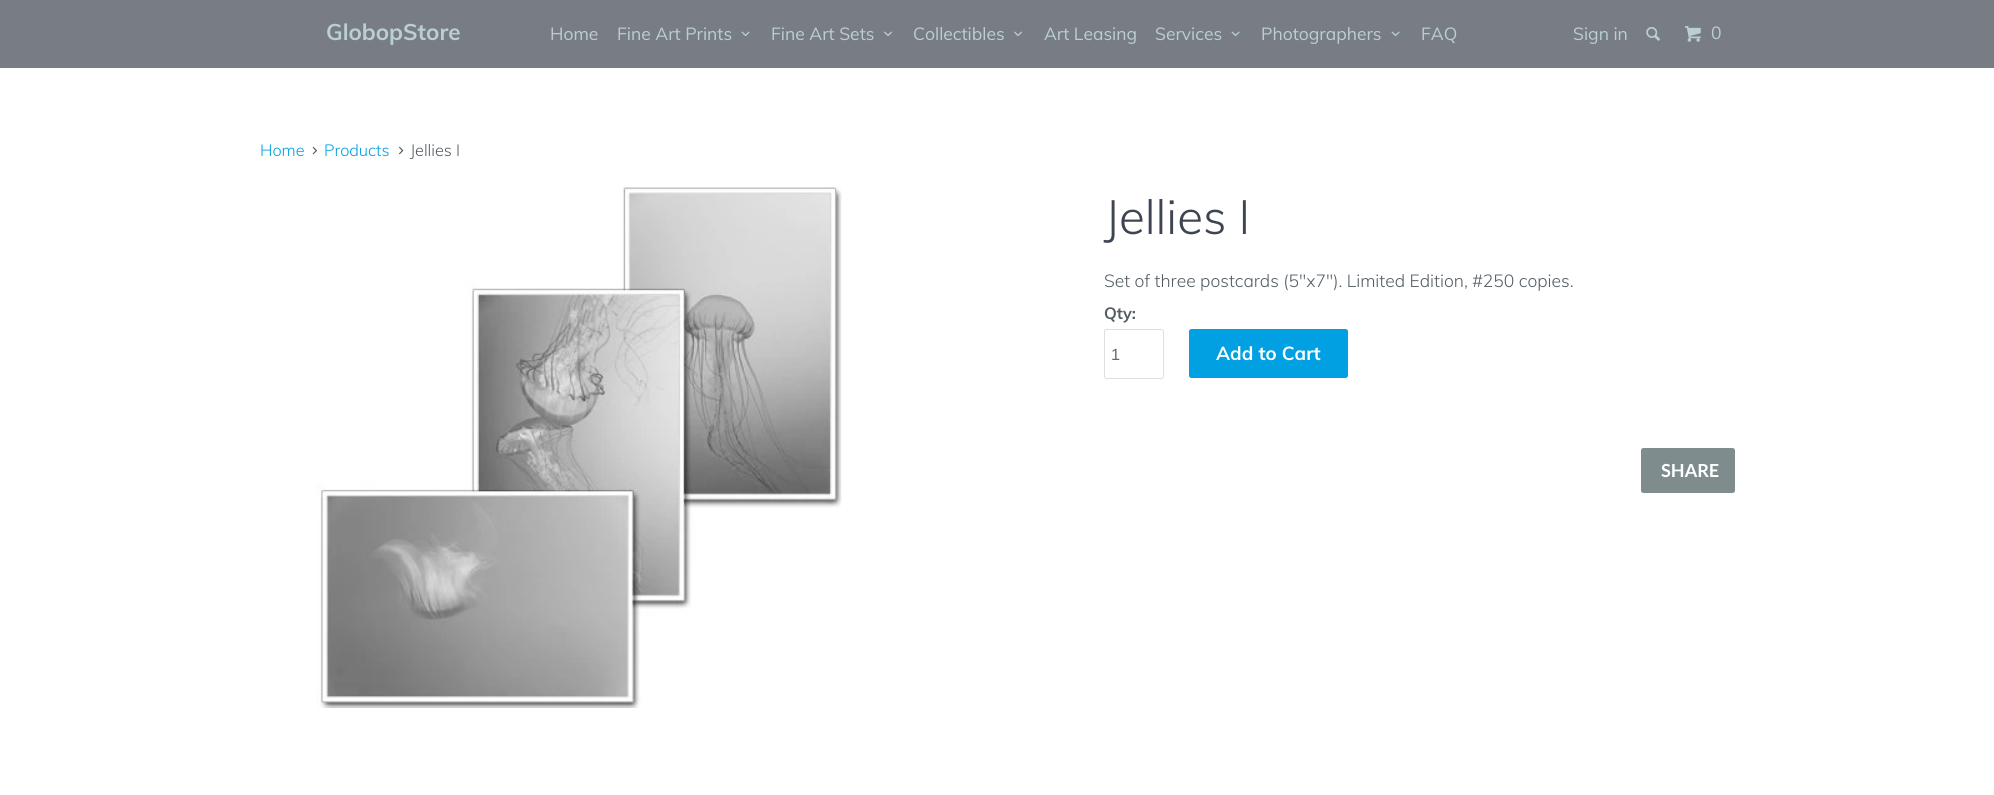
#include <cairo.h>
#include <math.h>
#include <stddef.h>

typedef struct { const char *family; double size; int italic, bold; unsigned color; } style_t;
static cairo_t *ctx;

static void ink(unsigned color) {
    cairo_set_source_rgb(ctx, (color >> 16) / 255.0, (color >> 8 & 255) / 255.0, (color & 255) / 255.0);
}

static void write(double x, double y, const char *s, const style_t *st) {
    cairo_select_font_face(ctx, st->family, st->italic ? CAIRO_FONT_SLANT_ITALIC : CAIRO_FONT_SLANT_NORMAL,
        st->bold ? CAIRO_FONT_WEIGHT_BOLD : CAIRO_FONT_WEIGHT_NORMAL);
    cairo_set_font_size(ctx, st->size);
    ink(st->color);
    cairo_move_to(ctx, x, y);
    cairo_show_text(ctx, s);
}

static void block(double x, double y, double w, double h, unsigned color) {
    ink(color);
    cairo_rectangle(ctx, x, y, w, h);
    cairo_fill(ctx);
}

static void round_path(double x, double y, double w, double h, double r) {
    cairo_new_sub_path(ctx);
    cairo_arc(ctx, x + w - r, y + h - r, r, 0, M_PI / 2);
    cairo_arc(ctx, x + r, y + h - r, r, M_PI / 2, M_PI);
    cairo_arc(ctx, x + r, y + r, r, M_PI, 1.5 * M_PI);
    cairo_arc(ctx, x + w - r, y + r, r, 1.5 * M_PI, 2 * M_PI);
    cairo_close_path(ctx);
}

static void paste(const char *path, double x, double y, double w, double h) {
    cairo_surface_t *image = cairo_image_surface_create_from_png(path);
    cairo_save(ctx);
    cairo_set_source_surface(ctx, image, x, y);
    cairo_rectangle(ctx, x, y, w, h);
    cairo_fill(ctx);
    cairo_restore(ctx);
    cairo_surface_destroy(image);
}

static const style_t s1 = {"Muli", 22.5, 0, 1, 0xbbcfd1};
static const style_t s2 = {"Muli", 17.5, 0, 0, 0xbbcfd1};
static const style_t s3 = {"Muli Light", 16.25, 0, 0, 0x00a0e3};
static const style_t s4 = {"Muli Light", 16.25, 0, 0, 0x525d63};
static const style_t s5 = {"Muli Light", 47.5, 0, 0, 0x3e4552};
static const style_t s6 = {"Muli Light", 17.5, 0, 0, 0x525d63};
static const style_t s7 = {"Muli", 16.25, 0, 1, 0x525d63};
static const style_t s8 = {"Liberation Sans", 16.25, 0, 0, 0x5f6a7d};
static const style_t s9 = {"Muli", 18.75, 0, 1, 0xffffff};
static const style_t s10 = {"Lato", 18, 0, 1, 0xffffff};

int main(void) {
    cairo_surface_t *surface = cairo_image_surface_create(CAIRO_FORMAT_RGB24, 1994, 795);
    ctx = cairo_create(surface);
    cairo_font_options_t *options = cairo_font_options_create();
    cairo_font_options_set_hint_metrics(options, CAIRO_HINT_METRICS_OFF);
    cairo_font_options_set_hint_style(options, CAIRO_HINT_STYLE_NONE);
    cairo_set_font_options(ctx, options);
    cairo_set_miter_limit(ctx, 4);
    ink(0xffffff);
    cairo_paint(ctx);
    block(0, 0, 1994, 68, 0x777d82);
    write(326, 40, "GlobopStore", &s1);
    write(550, 40, "Home", &s2);
    write(617, 40, "Fine Art Prints", &s2);
    paste("pic1.png", 741, 31, 9, 6);
    write(771, 40, "Fine Art Sets", &s2);
    paste("pic2.png", 884, 31, 8, 5);
    write(913, 40, "Collectibles", &s2);
    paste("pic2.png", 1014, 31, 8, 5);
    write(1044, 40, "Art Leasing", &s2);
    write(1155, 40, "Services", &s2);
    paste("pic1.png", 1231, 31, 9, 6);
    write(1261, 40, "Photographers", &s2);
    paste("pic1.png", 1391, 31, 9, 6);
    write(1421, 40, "FAQ", &s2);
    write(1573, 40, "Sign in", &s2);
    paste("pic3.png", 1646, 27, 14, 14);
    paste("pic4.png", 1685, 26, 16, 16);
    write(1711, 39, "0", &s2);
    write(260, 156, "Home", &s3);
    paste("pic5.png", 312, 146, 5, 9);
    write(324, 156, "Products", &s3);
    paste("pic6.png", 399, 146, 5, 9);
    write(410, 156, "Jellies I", &s4);
    paste("pic7.png", 316, 187, 526, 521);
    write(1104, 234, "Jellies I", &s5);
    write(1104, 287, "Set of three postcards (5\"x7\"). Limited Edition, #250 copies.", &s6);
    write(1104, 319, "Qty:", &s7);
    round_path(1104.5, 329.5, 59, 49, 2);
    ink(0xdfdfdf);
    cairo_set_line_width(ctx, 1);
    cairo_stroke(ctx);
    write(1111, 360, "1", &s8);
    ink(0x00a0e3);
    round_path(1189, 329, 159, 49, 2.5);
    cairo_fill(ctx);
    write(1216, 360, "Add to Cart", &s9);
    ink(0x7f8c8d);
    round_path(1641, 448, 94, 45, 2.5);
    cairo_fill(ctx);
    write(1661, 477, "SHARE", &s10);
    cairo_surface_write_to_png(surface, "screenshot.png");
    cairo_font_options_destroy(options);
    cairo_destroy(ctx);
    cairo_surface_destroy(surface);
    return 0;
}
